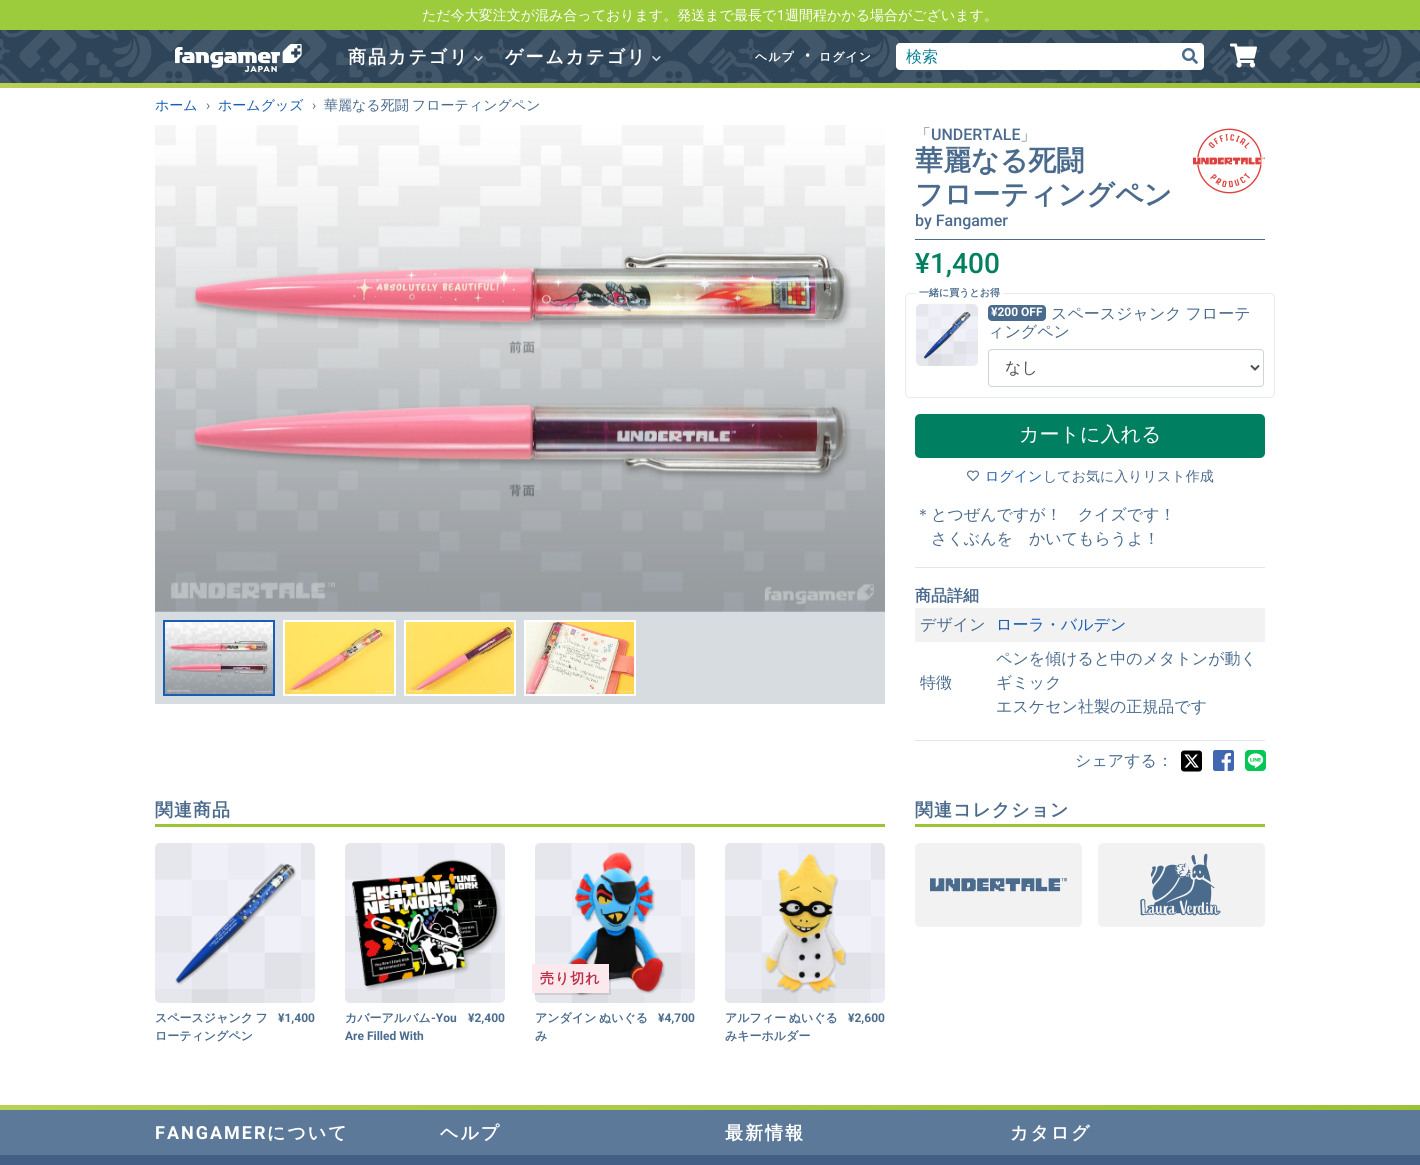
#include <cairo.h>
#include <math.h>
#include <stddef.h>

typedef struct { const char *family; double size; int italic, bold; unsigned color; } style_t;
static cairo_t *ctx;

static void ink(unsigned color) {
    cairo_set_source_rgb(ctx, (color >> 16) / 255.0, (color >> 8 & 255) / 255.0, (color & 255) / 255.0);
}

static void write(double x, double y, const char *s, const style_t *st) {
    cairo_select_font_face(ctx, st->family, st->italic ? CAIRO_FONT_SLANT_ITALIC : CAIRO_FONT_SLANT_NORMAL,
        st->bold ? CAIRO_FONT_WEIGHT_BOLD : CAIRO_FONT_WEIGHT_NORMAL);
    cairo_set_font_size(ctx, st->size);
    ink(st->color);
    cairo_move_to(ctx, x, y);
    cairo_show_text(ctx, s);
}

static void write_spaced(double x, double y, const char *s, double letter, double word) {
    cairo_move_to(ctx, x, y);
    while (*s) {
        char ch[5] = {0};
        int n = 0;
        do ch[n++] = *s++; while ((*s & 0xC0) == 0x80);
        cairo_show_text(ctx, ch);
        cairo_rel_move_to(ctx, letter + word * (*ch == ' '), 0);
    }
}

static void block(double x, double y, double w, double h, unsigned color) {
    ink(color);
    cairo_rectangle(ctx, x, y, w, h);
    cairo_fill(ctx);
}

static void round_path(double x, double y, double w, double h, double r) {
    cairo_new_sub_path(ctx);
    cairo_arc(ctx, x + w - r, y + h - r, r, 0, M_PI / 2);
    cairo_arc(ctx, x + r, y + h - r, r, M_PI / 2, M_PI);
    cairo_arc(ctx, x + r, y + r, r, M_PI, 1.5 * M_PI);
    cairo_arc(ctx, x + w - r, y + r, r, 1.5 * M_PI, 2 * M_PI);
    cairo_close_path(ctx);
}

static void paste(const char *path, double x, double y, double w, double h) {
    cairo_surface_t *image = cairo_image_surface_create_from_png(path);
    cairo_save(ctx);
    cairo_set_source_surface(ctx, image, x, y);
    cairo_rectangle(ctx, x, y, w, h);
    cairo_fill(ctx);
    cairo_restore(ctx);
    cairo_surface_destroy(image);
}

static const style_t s1 = {"WenQuanYi Zen Hei Medium", 14, 0, 0, 0xffffff};
static const style_t s2 = {"Roboto", 14, 0, 0, 0xffffff};
static const style_t s3 = {"Roboto", 16, 0, 0, 0xffffff};
static const style_t s4 = {"WenQuanYi Zen Hei Medium", 16, 0, 0, 0x0b8297};
static const style_t s5 = {"WenQuanYi Zen Hei Medium", 14, 0, 0, 0x185eb4};
static const style_t s6 = {"Roboto", 14, 0, 0, 0x6c757d};
static const style_t s7 = {"WenQuanYi Zen Hei Medium", 16, 0, 0, 0x4b6b8d};
static const style_t s8 = {"Roboto Medium", 16, 0, 0, 0x4b6b8d};
static const style_t s9 = {"WenQuanYi Zen Hei", 28, 0, 1, 0x4b6b8d};
static const style_t s10 = {"Roboto Medium", 28, 0, 0, 0x008060};
static const style_t s11 = {"WenQuanYi Zen Hei", 10, 0, 1, 0x4b6b8d};
static const style_t s12 = {"Roboto", 12, 0, 1, 0xffffff};
static const style_t s13 = {"WenQuanYi Zen Hei Medium", 16, 0, 0, 0x495057};
static const style_t s14 = {"WenQuanYi Zen Hei Medium", 20, 0, 0, 0xffffff};
static const style_t s15 = {"WenQuanYi Zen Hei Medium", 14, 0, 0, 0x4b6b8d};
static const style_t s16 = {"WenQuanYi Zen Hei", 16, 0, 1, 0x4b6b8d};
static const style_t s17 = {"WenQuanYi Zen Hei Medium", 16, 0, 0, 0x185eb4};
static const style_t s18 = {"WenQuanYi Zen Hei", 12, 0, 1, 0x4b6b8d};
static const style_t s19 = {"Roboto", 12, 0, 1, 0x4b6b8d};

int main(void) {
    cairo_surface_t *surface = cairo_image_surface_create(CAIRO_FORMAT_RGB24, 1420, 1165);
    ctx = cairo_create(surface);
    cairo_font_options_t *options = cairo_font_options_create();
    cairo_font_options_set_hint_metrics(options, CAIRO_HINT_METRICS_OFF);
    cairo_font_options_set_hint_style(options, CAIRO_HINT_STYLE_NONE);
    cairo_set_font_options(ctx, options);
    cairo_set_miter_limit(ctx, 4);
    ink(0xffffff);
    cairo_paint(ctx);
    block(0, 0, 1420, 30, 0x9ccb3c);
    write(422, 20, "ただ今大変注文が混み合っております。発送まで最長で", &s1);
    write(777, 20, "1", &s2);
    write(785, 20, "週間程かかる場合がございます。", &s1);
    block(0, 30, 1420, 53, 0x2e4459);
    paste("pic1.png", 0, 30, 1420, 53);
    paste("pic2.png", 0, 83, 1420, 5);
    paste("pic3.png", 175, 44, 127, 28);
    cairo_select_font_face(ctx, "WenQuanYi Zen Hei", CAIRO_FONT_SLANT_NORMAL, CAIRO_FONT_WEIGHT_BOLD);
    cairo_set_font_size(ctx, 18);
    ink(0xffffff);
    write_spaced(348, 63, "商品カテゴリ", 2, 0);
    paste("pic4.png", 474, 56, 9, 6);
    write_spaced(505, 63, "ゲームカテゴリ", 2, 0);
    paste("pic5.png", 652, 56, 9, 6);
    cairo_set_font_size(ctx, 12);
    write_spaced(755, 61, "ヘルプ", 1, 0);
    write(805, 61, "•", &s3);
    cairo_select_font_face(ctx, "WenQuanYi Zen Hei", CAIRO_FONT_SLANT_NORMAL, CAIRO_FONT_WEIGHT_BOLD);
    cairo_set_font_size(ctx, 12);
    write_spaced(819, 61, "ログイン", 1, 0);
    round_path(896, 43, 308, 27, 4);
    cairo_fill(ctx);
    write(906, 62, "検索", &s4);
    paste("pic6.png", 1182, 48, 16, 16);
    paste("pic7.png", 1230, 43, 27, 25);
    write(155, 110, "ホーム", &s5);
    write(206, 110, "›", &s6);
    write(218, 110, "ホームグッズ", &s5);
    write(312, 110, "›", &s6);
    cairo_select_font_face(ctx, "WenQuanYi Zen Hei Medium", CAIRO_FONT_SLANT_NORMAL, CAIRO_FONT_WEIGHT_NORMAL);
    ink(0x4b6b8d);
    write_spaced(324, 110, "華麗なる死闘 フローティングペン", 0, -1);
    paste("pic8.png", 155, 125, 730, 487);
    block(155, 612, 730, 92, 0xd6dce0);
    cairo_rectangle(ctx, 164, 621, 110, 74);
    ink(0x185eb4);
    cairo_stroke(ctx);
    paste("pic9.png", 165, 622, 108, 72);
    cairo_rectangle(ctx, 284, 621, 111, 74);
    ink(0xffffff);
    cairo_stroke(ctx);
    paste("pic10.png", 285, 622, 109, 72);
    cairo_rectangle(ctx, 405, 621, 110, 74);
    cairo_stroke(ctx);
    paste("pic11.png", 406, 622, 108, 72);
    cairo_rectangle(ctx, 525, 621, 110, 74);
    cairo_stroke(ctx);
    paste("pic12.png", 526, 622, 108, 72);
    block(915, 239, 350, 1, 0x4b6b8d);
    write(915, 140, "「", &s7);
    write(931, 140, "UNDERTALE", &s8);
    write(1020, 140, "」", &s7);
    paste("pic13.png", 1197, 128, 65, 66);
    paste("pic15.png", 1197, 157, 65, 8);
    paste("pic14.png", 1193, 157, 72, 8);
    write(915, 170, "華麗なる死闘", &s9);
    write(915, 204, "フローティングペン", &s9);
    write(915, 226, "by Fangamer", &s8);
    write(915, 273, "¥1,400", &s10);
    round_path(905.5, 293.5, 369, 104, 4.5);
    ink(0xe9ecef);
    cairo_set_line_width(ctx, 1);
    cairo_stroke(ctx);
    block(916, 293, 87, 1, 0xffffff);
    write(919, 296, "一緒に買うとお得", &s11);
    ink(0xf7f8ff);
    round_path(916, 304, 62, 62, 5);
    cairo_fill(ctx);
    paste("pic16.png", 916, 304, 62, 62);
    paste("pic17.png", 924, 312, 47, 47);
    ink(0x4b6b8d);
    round_path(988, 305, 58, 16, 4);
    cairo_fill(ctx);
    write(991, 316, "¥200 OFF", &s12);
    cairo_select_font_face(ctx, "WenQuanYi Zen Hei Medium", CAIRO_FONT_SLANT_NORMAL, CAIRO_FONT_WEIGHT_NORMAL);
    cairo_set_font_size(ctx, 16);
    ink(0x4b6b8d);
    write_spaced(1051, 319, "スペースジャンク フローテ", 0, -1);
    write(988, 337, "ィングペン", &s7);
    round_path(988.5, 349.5, 275, 37, 3.5);
    ink(0xced4da);
    cairo_stroke(ctx);
    cairo_new_path(ctx);
    cairo_move_to(ctx, 1251, 365.5);
    cairo_line_to(ctx, 1255, 369.5);
    cairo_line_to(ctx, 1259, 365.5);
    ink(0x495057);
    cairo_set_line_width(ctx, 2);
    cairo_stroke(ctx);
    write(1005, 373, "なし", &s13);
    ink(0x008060);
    round_path(915, 414, 350, 44, 5);
    cairo_fill(ctx);
    write(1019, 441, "カートに入れる", &s14);
    paste("pic18.png", 967, 470, 12, 11);
    write(985, 481, "ログイン", &s5);
    write(1043, 481, "してお気に入りリスト作成", &s15);
    write(915, 520, "＊とつぜんですが！　クイズです！", &s7);
    write(931, 544, "さくぶんを　かいてもらうよ！", &s7);
    block(915, 567, 350, 1, 0xe6e6e6);
    write(915, 601, "商品詳細", &s16);
    block(915, 608, 350, 34, 0xf2f2f2);
    write(920, 630, "デザイン", &s7);
    write(996, 630, "ローラ・バルデン", &s17);
    write(920, 688, "特徴", &s7);
    write(996, 664, "ペンを傾けると中のメタトンが動く", &s7);
    write(996, 688, "ギミック", &s7);
    write(996, 712, "エスケセン社製の正規品です", &s7);
    block(915, 740, 350, 1, 0xe6e6e6);
    write(1075, 766, "シェアする：", &s7);
    paste("pic19.png", 1181, 750, 21, 22);
    paste("pic20.png", 1213, 750, 21, 21);
    paste("pic21.png", 1245, 750, 21, 21);
    block(155, 824, 730, 3, 0x9cc334);
    cairo_select_font_face(ctx, "WenQuanYi Zen Hei", CAIRO_FONT_SLANT_NORMAL, CAIRO_FONT_WEIGHT_BOLD);
    cairo_set_font_size(ctx, 18);
    ink(0x4b6b8d);
    write_spaced(155, 816, "関連商品", 1, 0);
    ink(0xf7f8ff);
    round_path(155, 843, 160, 160, 5);
    cairo_fill(ctx);
    paste("pic22.png", 155, 843, 160, 160);
    paste("pic23.png", 175, 863, 122, 122);
    cairo_set_font_size(ctx, 12);
    ink(0x4b6b8d);
    write_spaced(155, 1022, "スペースジャンク フ", 0, -1);
    write(155, 1040, "ローティングペン", &s18);
    write(278, 1022, "¥1,400", &s19);
    ink(0xf7f8ff);
    round_path(345, 843, 160, 160, 5);
    cairo_fill(ctx);
    paste("pic24.png", 345, 843, 160, 160);
    paste("pic25.png", 352, 859, 150, 132);
    write(345, 1022, "カバーアルバム", &s18);
    write(431, 1022, "-You", &s19);
    write(345, 1040, "Are Filled With", &s19);
    write(468, 1022, "¥2,400", &s19);
    ink(0xf7f8ff);
    round_path(535, 843, 160, 160, 5);
    cairo_fill(ctx);
    paste("pic24.png", 535, 843, 160, 160);
    paste("pic26.png", 567, 852, 98, 144);
    cairo_set_source_rgba(ctx, 0, 0, 0, 0.1);
    cairo_new_path(ctx);
    cairo_move_to(ctx, 534, 993);
    cairo_line_to(ctx, 534, 995);
    cairo_line_to(ctx, 611, 995);
    cairo_line_to(ctx, 611, 966);
    cairo_line_to(ctx, 609, 966);
    cairo_line_to(ctx, 609, 993);
    cairo_close_path(ctx);
    cairo_fill(ctx);
    block(532, 964, 77, 29, 0xfbe9ed);
    cairo_select_font_face(ctx, "WenQuanYi Zen Hei", CAIRO_FONT_SLANT_NORMAL, CAIRO_FONT_WEIGHT_BOLD);
    cairo_set_font_size(ctx, 14);
    ink(0xbb2d48);
    write_spaced(540, 983, "売り切れ", 1, 0);
    cairo_set_font_size(ctx, 12);
    ink(0x4b6b8d);
    write_spaced(535, 1022, "アンダイン ぬいぐる", 0, -1);
    write(535, 1040, "み", &s18);
    write(658, 1022, "¥4,700", &s19);
    ink(0xf7f8ff);
    round_path(725, 843, 160, 160, 5);
    cairo_fill(ctx);
    paste("pic27.png", 725, 843, 160, 160);
    paste("pic28.png", 765, 853, 82, 141);
    cairo_select_font_face(ctx, "WenQuanYi Zen Hei", CAIRO_FONT_SLANT_NORMAL, CAIRO_FONT_WEIGHT_BOLD);
    ink(0x4b6b8d);
    write_spaced(725, 1022, "アルフィー ぬいぐる", 0, -1);
    write(725, 1040, "みキーホルダー", &s18);
    write(848, 1022, "¥2,600", &s19);
    block(915, 824, 350, 3, 0x9cc334);
    cairo_select_font_face(ctx, "WenQuanYi Zen Hei", CAIRO_FONT_SLANT_NORMAL, CAIRO_FONT_WEIGHT_BOLD);
    cairo_set_font_size(ctx, 18);
    ink(0x4b6b8d);
    write_spaced(915, 816, "関連コレクション", 1, 0);
    ink(0xf2f2f2);
    round_path(915, 843, 167, 84, 5);
    cairo_fill(ctx);
    paste("pic29.png", 930, 878, 137, 14);
    round_path(1098, 843, 167, 84, 5);
    cairo_fill(ctx);
    paste("pic30.png", 1140, 853, 81, 63);
    block(0, 1155, 1420, 10, 0x455e86);
    block(0, 1110, 1420, 45, 0x5c7999);
    paste("pic31.png", 0, 1105, 1420, 5);
    cairo_select_font_face(ctx, "Roboto", CAIRO_FONT_SLANT_NORMAL, CAIRO_FONT_WEIGHT_BOLD);
    ink(0xffffff);
    write_spaced(155, 1139, "FANGAMER", 2, 0);
    cairo_select_font_face(ctx, "WenQuanYi Zen Hei", CAIRO_FONT_SLANT_NORMAL, CAIRO_FONT_WEIGHT_BOLD);
    write_spaced(267, 1139, "について", 2, 0);
    write_spaced(440, 1139, "ヘルプ", 2, 0);
    write_spaced(725, 1139, "最新情報", 2, 0);
    write_spaced(1010, 1139, "カタログ", 2, 0);
    cairo_surface_write_to_png(surface, "screenshot.png");
    cairo_font_options_destroy(options);
    cairo_destroy(ctx);
    cairo_surface_destroy(surface);
    return 0;
}
